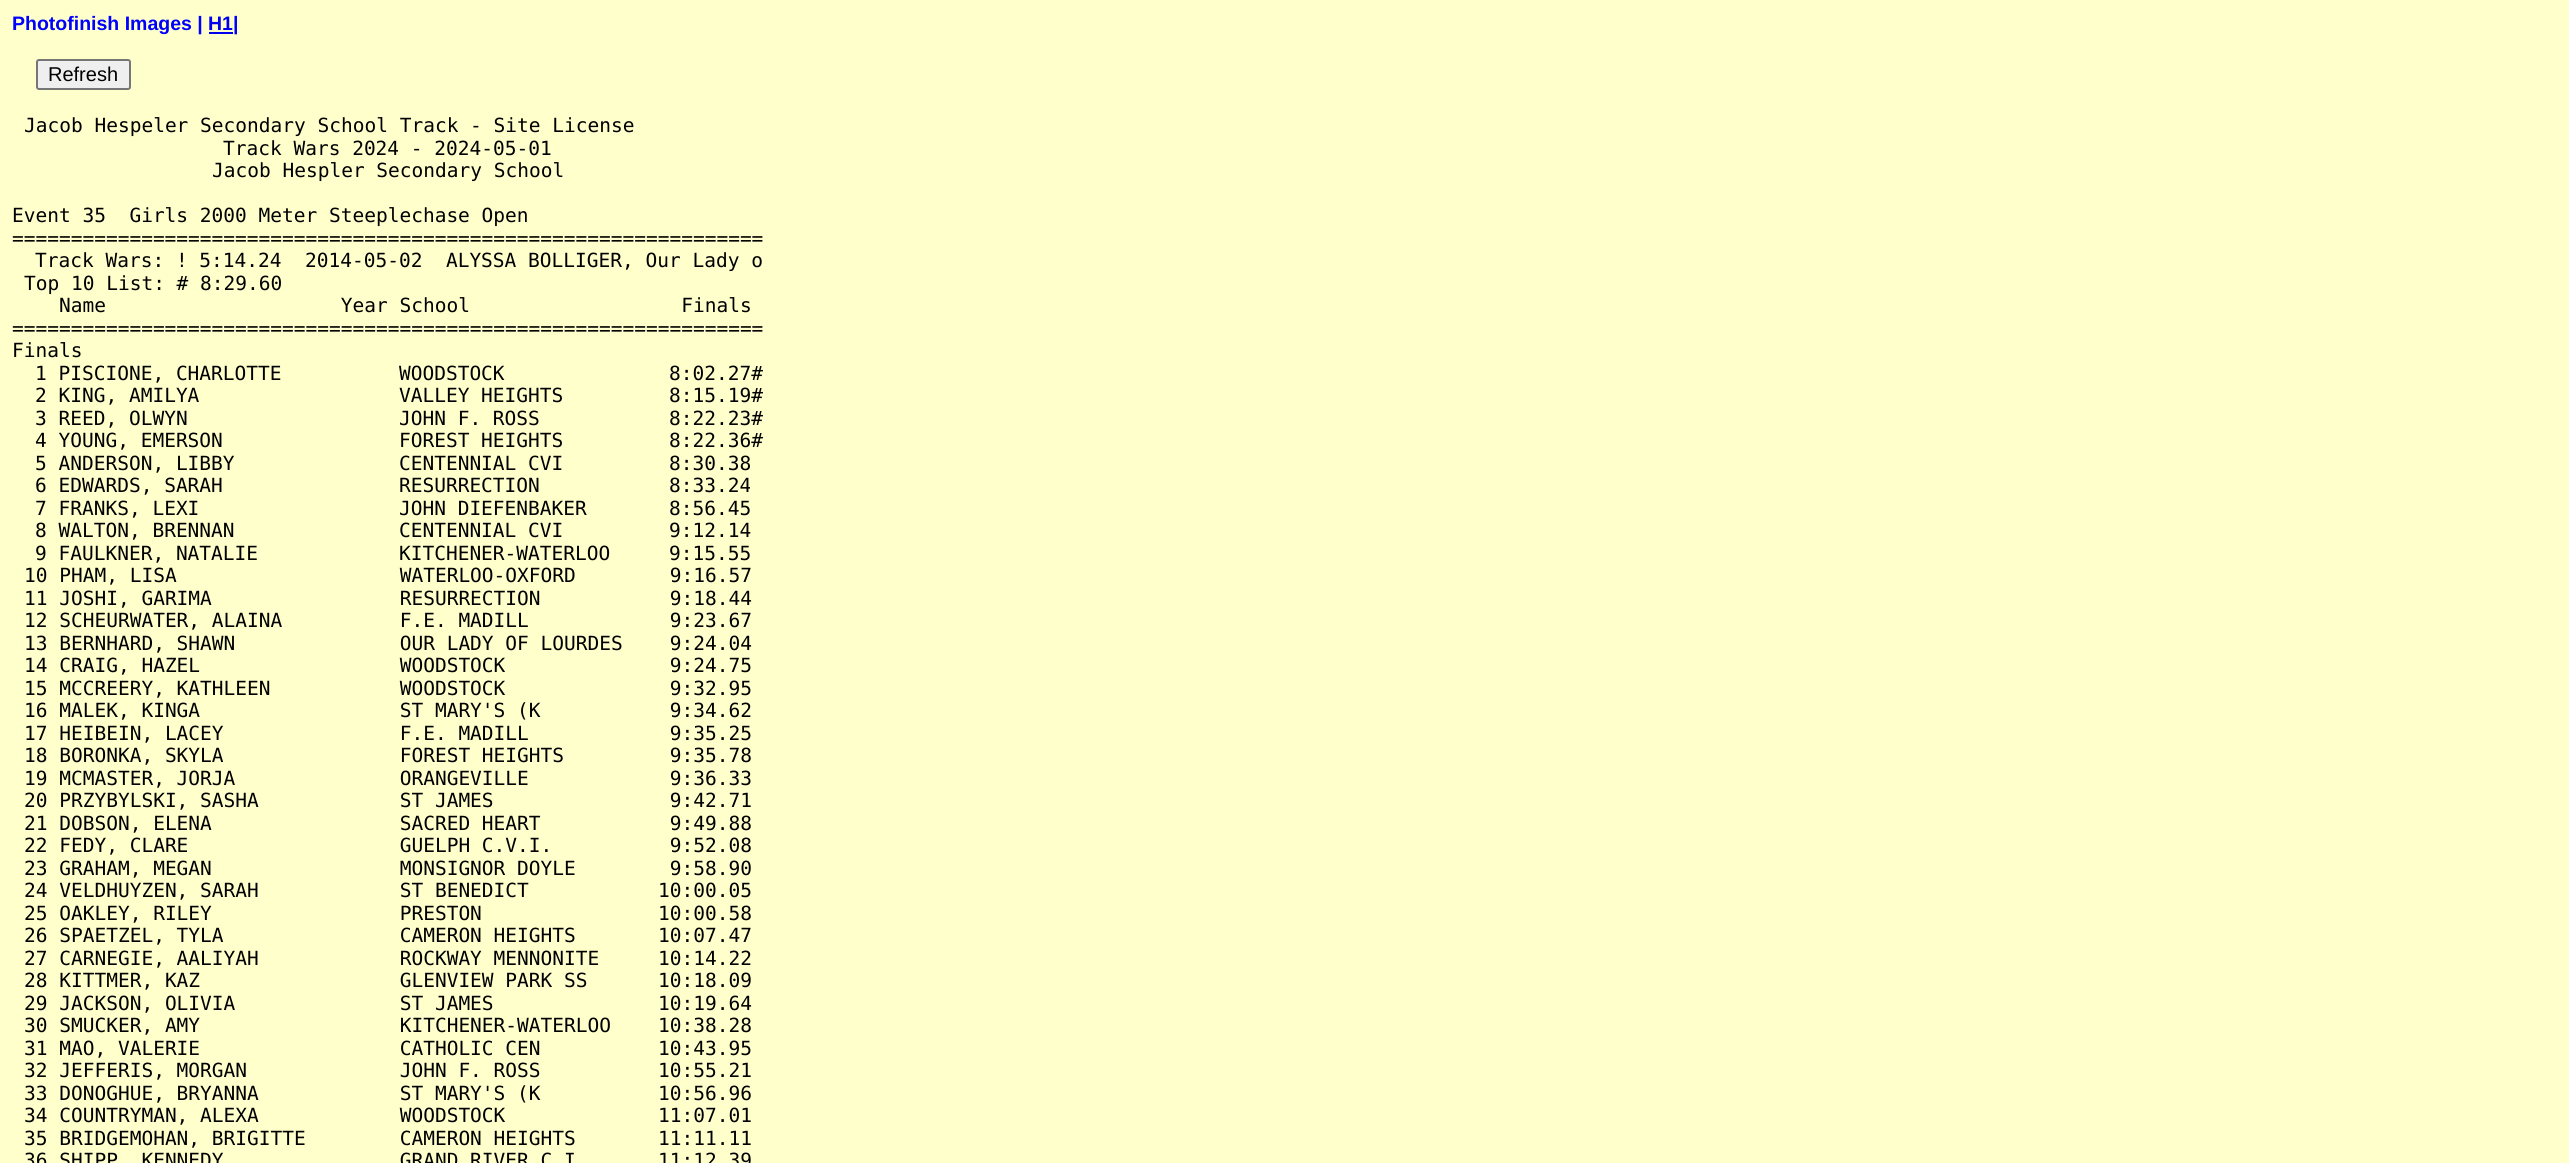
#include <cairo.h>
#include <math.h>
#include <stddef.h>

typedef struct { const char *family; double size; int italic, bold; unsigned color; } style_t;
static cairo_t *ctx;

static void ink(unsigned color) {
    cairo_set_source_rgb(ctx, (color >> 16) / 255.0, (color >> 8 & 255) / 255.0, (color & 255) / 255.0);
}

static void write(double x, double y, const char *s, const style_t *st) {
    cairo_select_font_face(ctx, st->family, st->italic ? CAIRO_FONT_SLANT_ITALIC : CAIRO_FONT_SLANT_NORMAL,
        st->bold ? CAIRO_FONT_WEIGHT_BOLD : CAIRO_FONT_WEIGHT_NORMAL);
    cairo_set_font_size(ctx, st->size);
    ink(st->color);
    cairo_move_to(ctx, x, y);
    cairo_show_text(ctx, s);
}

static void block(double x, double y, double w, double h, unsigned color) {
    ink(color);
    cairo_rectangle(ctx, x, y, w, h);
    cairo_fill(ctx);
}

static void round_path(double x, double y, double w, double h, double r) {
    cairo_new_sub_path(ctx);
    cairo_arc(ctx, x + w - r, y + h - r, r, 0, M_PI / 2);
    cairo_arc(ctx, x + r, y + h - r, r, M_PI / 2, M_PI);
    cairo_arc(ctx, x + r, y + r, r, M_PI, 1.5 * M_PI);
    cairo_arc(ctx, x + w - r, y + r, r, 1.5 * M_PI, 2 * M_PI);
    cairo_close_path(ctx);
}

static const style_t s1 = {"Liberation Sans", 19.5, 0, 1, 0x0000ff};
static const style_t s2 = {"Liberation Sans", 19.5, 0, 1, 0x0000ee};
static const style_t s3 = {"Liberation Sans", 20, 0, 0, 0x000000};
static const style_t s4 = {"DejaVu Sans Mono", 19.5, 0, 0, 0x000000};

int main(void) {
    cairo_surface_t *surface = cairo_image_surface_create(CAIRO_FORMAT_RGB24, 2569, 1163);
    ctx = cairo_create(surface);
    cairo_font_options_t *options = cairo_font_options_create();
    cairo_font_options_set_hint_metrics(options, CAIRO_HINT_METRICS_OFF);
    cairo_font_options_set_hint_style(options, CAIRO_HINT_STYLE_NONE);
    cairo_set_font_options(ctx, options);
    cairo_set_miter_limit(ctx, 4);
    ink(0xffffcc);
    cairo_paint(ctx);
    write(12, 30, "Photofinish Images |", &s1);
    write(208, 30, "H1", &s2);
    write(233, 30, "|", &s1);
    block(209, 32, 24, 2, 0x0000ee);
    ink(0xefefef);
    round_path(37, 60, 93, 29, 2);
    cairo_fill_preserve(ctx);
    ink(0x767676);
    cairo_stroke(ctx);
    write(48, 81, "Refresh", &s3);
    write(24, 132, "Jacob Hespeler Secondary School Track - Site License", &s4);
    write(223, 155, "Track Wars 2024 - 2024-05-01", &s4);
    write(212, 177, "Jacob Hespler Secondary School", &s4);
    write(12, 222, "Event 35  Girls 2000 Meter Steeplechase Open", &s4);
    write(12, 245, "================================================================", &s4);
    write(35, 267, "Track Wars: ! 5:14.24  2014-05-02  ALYSSA BOLLIGER, Our Lady o", &s4);
    write(24, 290, "Top 10 List: # 8:29.60", &s4);
    write(59, 312, "Name                    Year School                  Finals", &s4);
    write(12, 335, "================================================================", &s4);
    write(12, 357, "Finals", &s4);
    write(35, 380, "1 PISCIONE, CHARLOTTE          WOODSTOCK              8:02.27#", &s4);
    write(35, 402, "2 KING, AMILYA                 VALLEY HEIGHTS         8:15.19#", &s4);
    write(35, 425, "3 REED, OLWYN                  JOHN F. ROSS           8:22.23#", &s4);
    write(35, 447, "4 YOUNG, EMERSON               FOREST HEIGHTS         8:22.36#", &s4);
    write(35, 470, "5 ANDERSON, LIBBY              CENTENNIAL CVI         8:30.38", &s4);
    write(35, 492, "6 EDWARDS, SARAH               RESURRECTION           8:33.24", &s4);
    write(35, 515, "7 FRANKS, LEXI                 JOHN DIEFENBAKER       8:56.45", &s4);
    write(35, 537, "8 WALTON, BRENNAN              CENTENNIAL CVI         9:12.14", &s4);
    write(35, 560, "9 FAULKNER, NATALIE            KITCHENER-WATERLOO     9:15.55", &s4);
    write(24, 582, "10 PHAM, LISA                   WATERLOO-OXFORD        9:16.57", &s4);
    write(24, 605, "11 JOSHI, GARIMA                RESURRECTION           9:18.44", &s4);
    write(24, 627, "12 SCHEURWATER, ALAINA          F.E. MADILL            9:23.67", &s4);
    write(24, 650, "13 BERNHARD, SHAWN              OUR LADY OF LOURDES    9:24.04", &s4);
    write(24, 672, "14 CRAIG, HAZEL                 WOODSTOCK              9:24.75", &s4);
    write(24, 695, "15 MCCREERY, KATHLEEN           WOODSTOCK              9:32.95", &s4);
    write(24, 717, "16 MALEK, KINGA                 ST MARY'S (K           9:34.62", &s4);
    write(24, 740, "17 HEIBEIN, LACEY               F.E. MADILL            9:35.25", &s4);
    write(24, 762, "18 BORONKA, SKYLA               FOREST HEIGHTS         9:35.78", &s4);
    write(24, 785, "19 MCMASTER, JORJA              ORANGEVILLE            9:36.33", &s4);
    write(24, 807, "20 PRZYBYLSKI, SASHA            ST JAMES               9:42.71", &s4);
    write(24, 830, "21 DOBSON, ELENA                SACRED HEART           9:49.88", &s4);
    write(24, 852, "22 FEDY, CLARE                  GUELPH C.V.I.          9:52.08", &s4);
    write(24, 875, "23 GRAHAM, MEGAN                MONSIGNOR DOYLE        9:58.90", &s4);
    write(24, 897, "24 VELDHUYZEN, SARAH            ST BENEDICT           10:00.05", &s4);
    write(24, 920, "25 OAKLEY, RILEY                PRESTON               10:00.58", &s4);
    write(24, 942, "26 SPAETZEL, TYLA               CAMERON HEIGHTS       10:07.47", &s4);
    write(24, 965, "27 CARNEGIE, AALIYAH            ROCKWAY MENNONITE     10:14.22", &s4);
    write(24, 987, "28 KITTMER, KAZ                 GLENVIEW PARK SS      10:18.09", &s4);
    write(24, 1010, "29 JACKSON, OLIVIA              ST JAMES              10:19.64", &s4);
    write(24, 1032, "30 SMUCKER, AMY                 KITCHENER-WATERLOO    10:38.28", &s4);
    write(24, 1055, "31 MAO, VALERIE                 CATHOLIC CEN          10:43.95", &s4);
    write(24, 1077, "32 JEFFERIS, MORGAN             JOHN F. ROSS          10:55.21", &s4);
    write(24, 1100, "33 DONOGHUE, BRYANNA            ST MARY'S (K          10:56.96", &s4);
    write(24, 1122, "34 COUNTRYMAN, ALEXA            WOODSTOCK             11:07.01", &s4);
    write(24, 1145, "35 BRIDGEMOHAN, BRIGITTE        CAMERON HEIGHTS       11:11.11", &s4);
    write(24, 1167, "36 SHIPP, KENNEDY               GRAND RIVER C I       11:12.39", &s4);
    cairo_surface_write_to_png(surface, "screenshot.png");
    cairo_font_options_destroy(options);
    cairo_destroy(ctx);
    cairo_surface_destroy(surface);
    return 0;
}
